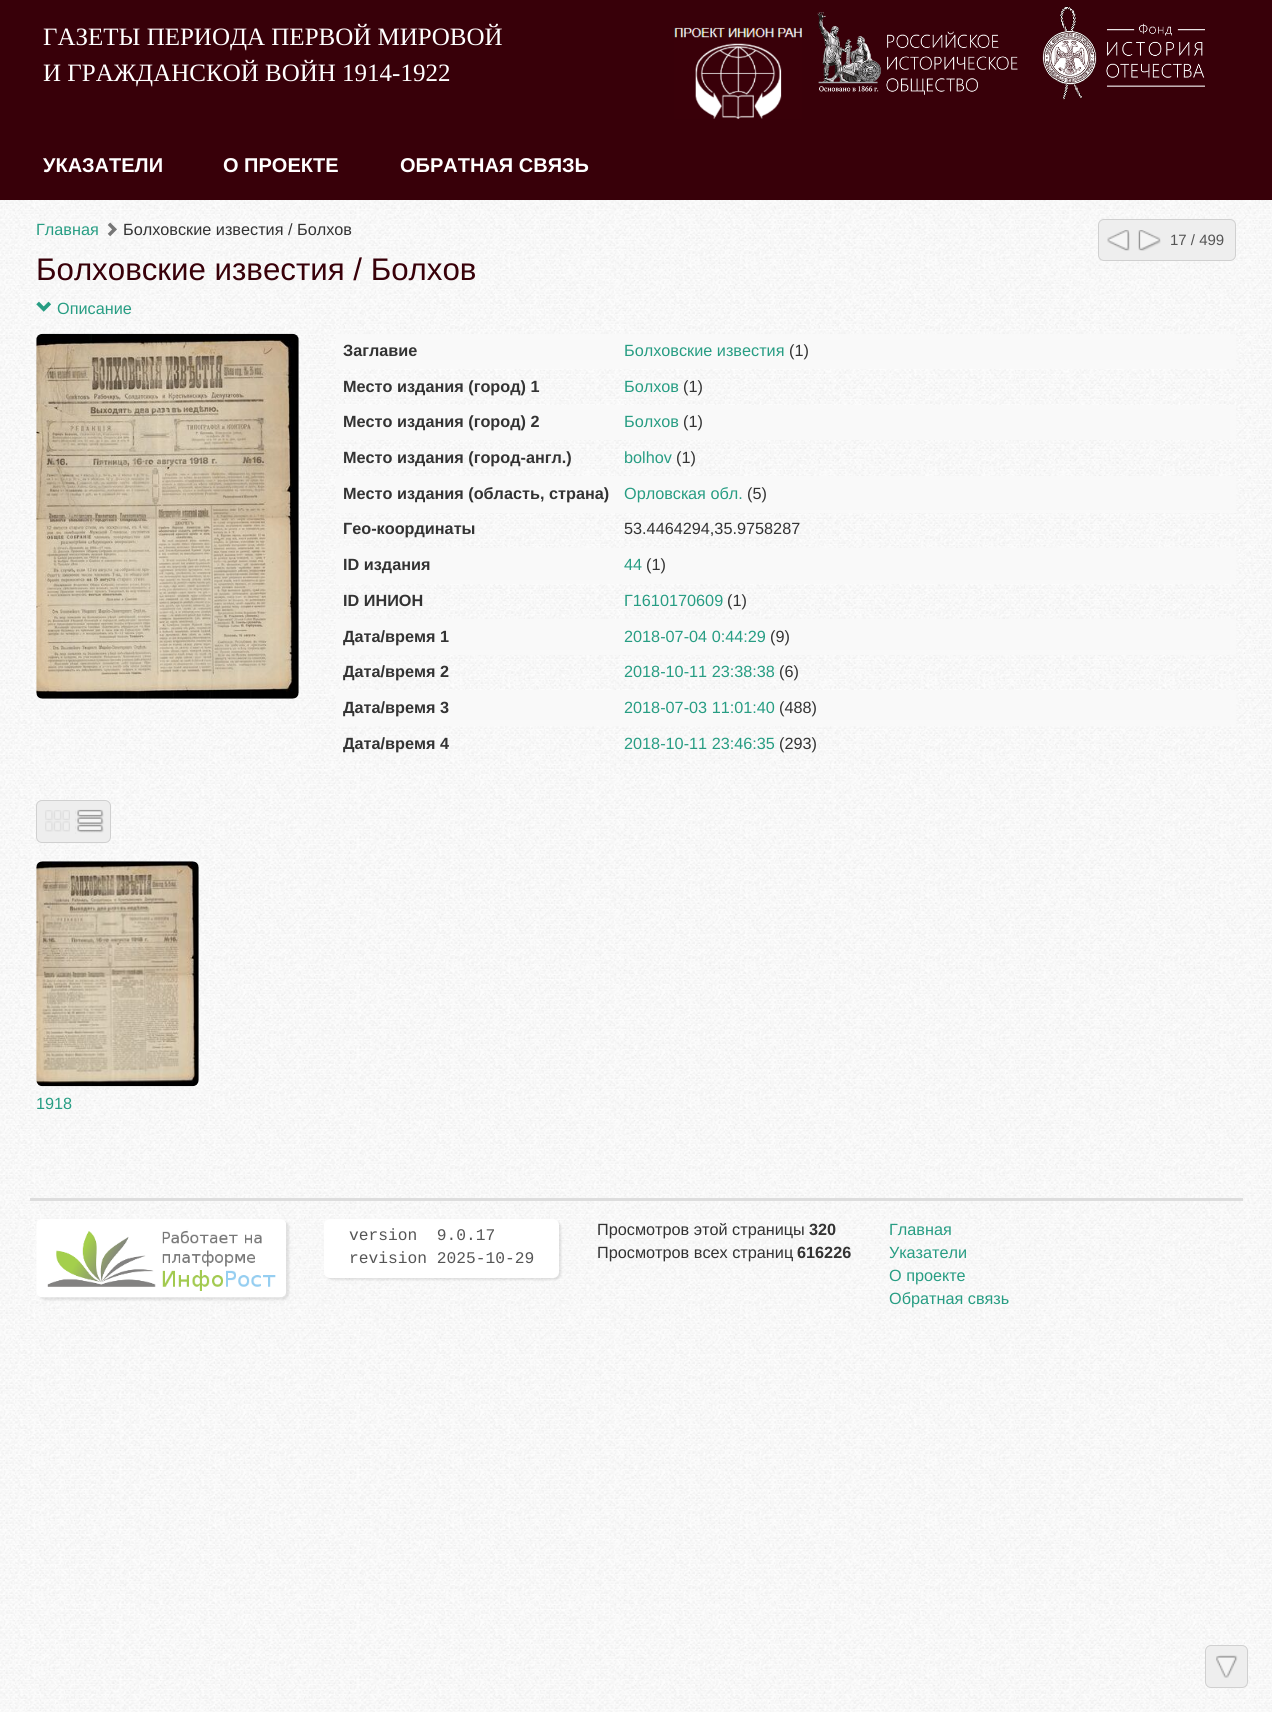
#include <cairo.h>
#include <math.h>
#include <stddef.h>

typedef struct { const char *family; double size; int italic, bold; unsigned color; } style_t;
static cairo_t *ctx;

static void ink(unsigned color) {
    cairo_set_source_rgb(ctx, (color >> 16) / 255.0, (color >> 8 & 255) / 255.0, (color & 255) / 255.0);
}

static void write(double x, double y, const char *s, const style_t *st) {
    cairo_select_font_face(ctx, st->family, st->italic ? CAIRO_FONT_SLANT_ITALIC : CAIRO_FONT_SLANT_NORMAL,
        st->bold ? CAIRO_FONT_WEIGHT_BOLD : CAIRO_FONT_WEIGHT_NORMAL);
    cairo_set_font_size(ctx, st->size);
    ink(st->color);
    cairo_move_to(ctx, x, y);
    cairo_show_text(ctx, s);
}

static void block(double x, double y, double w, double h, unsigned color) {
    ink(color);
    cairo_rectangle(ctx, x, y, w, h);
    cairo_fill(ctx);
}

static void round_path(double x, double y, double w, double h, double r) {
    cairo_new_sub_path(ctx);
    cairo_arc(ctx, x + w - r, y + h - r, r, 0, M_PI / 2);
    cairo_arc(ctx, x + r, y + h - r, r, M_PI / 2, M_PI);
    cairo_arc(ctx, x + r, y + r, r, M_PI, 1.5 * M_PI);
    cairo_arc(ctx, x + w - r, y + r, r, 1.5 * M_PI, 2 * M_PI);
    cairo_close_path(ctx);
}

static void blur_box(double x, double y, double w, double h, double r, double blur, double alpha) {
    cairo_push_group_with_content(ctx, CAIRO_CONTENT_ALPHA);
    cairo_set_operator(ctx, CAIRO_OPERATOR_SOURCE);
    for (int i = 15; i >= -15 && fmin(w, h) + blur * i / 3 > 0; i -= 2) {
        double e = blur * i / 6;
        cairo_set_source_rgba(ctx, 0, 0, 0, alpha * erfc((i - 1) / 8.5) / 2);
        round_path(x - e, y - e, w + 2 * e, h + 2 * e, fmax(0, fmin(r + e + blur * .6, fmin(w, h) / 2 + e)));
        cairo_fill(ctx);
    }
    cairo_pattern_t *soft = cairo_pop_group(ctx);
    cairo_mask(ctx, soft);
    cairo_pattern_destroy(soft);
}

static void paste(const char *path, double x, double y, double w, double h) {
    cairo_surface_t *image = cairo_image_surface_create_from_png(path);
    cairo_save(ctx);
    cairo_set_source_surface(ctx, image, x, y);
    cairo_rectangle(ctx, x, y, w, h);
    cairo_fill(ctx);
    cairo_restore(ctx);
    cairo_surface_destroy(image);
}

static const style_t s1 = {"Liberation Serif", 25, 0, 0, 0xffffff};
static const style_t s2 = {"Liberation Sans", 20, 0, 1, 0xffffff};
static const style_t s3 = {"Liberation Sans", 16.25, 0, 0, 0x279d83};
static const style_t s4 = {"Liberation Sans", 16.25, 0, 0, 0x333333};
static const style_t s5 = {"Liberation Sans", 15, 0, 0, 0x555555};
static const style_t s6 = {"Liberation Sans", 31.25, 0, 0, 0x380009};
static const style_t s7 = {"Liberation Sans", 16.25, 0, 1, 0x333333};
static const style_t s8 = {"Liberation Mono", 16.25, 0, 0, 0x555555};

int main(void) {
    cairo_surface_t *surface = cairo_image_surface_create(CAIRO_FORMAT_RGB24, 1272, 1712);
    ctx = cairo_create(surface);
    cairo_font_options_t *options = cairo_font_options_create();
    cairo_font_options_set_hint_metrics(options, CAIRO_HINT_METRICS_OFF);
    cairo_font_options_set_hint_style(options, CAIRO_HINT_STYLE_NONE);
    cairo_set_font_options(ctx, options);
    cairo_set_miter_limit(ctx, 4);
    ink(0xffffff);
    cairo_paint(ctx);
    paste("pic1.png", 0, 200, 1272, 1512);
    block(0, 0, 1272, 200, 0x380009);
    write(43, 45, "ГАЗЕТЫ ПЕРИОДА ПЕРВОЙ МИРОВОЙ", &s1);
    write(43, 81, "И ГРАЖДАНСКОЙ ВОЙН 1914-1922", &s1);
    paste("pic2.png", 674, 27, 128, 92);
    paste("pic3.png", 817, 12, 201, 83);
    paste("pic4.png", 1042, 6, 163, 94);
    write(43, 172, "УКАЗАТЕЛИ", &s2);
    write(223, 172, "О ПРОЕКТЕ", &s2);
    write(400, 172, "ОБРАТНАЯ СВЯЗЬ", &s2);
    write(36, 235, "Главная", &s3);
    paste("pic5.png", 107, 222, 10, 15);
    write(123, 235, "Болховские известия / Болхов", &s4);
    ink(0xeeeeee);
    round_path(1098.5, 219.5, 137, 41, 5.5);
    cairo_fill_preserve(ctx);
    ink(0xd0d0d0);
    cairo_set_line_width(ctx, 1);
    cairo_stroke(ctx);
    paste("pic6.png", 1107, 230, 23, 21);
    paste("pic7.png", 1138, 230, 23, 21);
    write(1170, 245, "17 / 499", &s5);
    write(36, 280, "Болховские известия / Болхов", &s6);
    paste("pic8.png", 36, 301, 16, 11);
    write(57, 314, "Описание", &s3);
    paste("pic9.png", 36, 333, 263, 366);
    block(336, 334, 900, 35, 0xf9f9f9);
    write(343, 356, "Заглавие", &s7);
    write(624, 356, "Болховские известия", &s3);
    write(789, 356, "(1)", &s4);
    write(343, 392, "Место издания (город) 1", &s7);
    write(624, 392, "Болхов", &s3);
    write(683, 392, "(1)", &s4);
    block(336, 405, 900, 35, 0xf9f9f9);
    write(343, 427, "Место издания (город) 2", &s7);
    write(624, 427, "Болхов", &s3);
    write(683, 427, "(1)", &s4);
    write(343, 463, "Место издания (город-англ.)", &s7);
    write(624, 463, "bolhov", &s3);
    write(676, 463, "(1)", &s4);
    block(336, 476, 900, 37, 0xf9f9f9);
    write(343, 499, "Место издания (область, страна)", &s7);
    write(624, 499, "Орловская обл.", &s3);
    write(747, 499, "(5)", &s4);
    write(343, 534, "Гео-координаты", &s7);
    write(624, 534, "53.4464294,35.9758287", &s4);
    block(336, 548, 900, 36, 0xf9f9f9);
    write(343, 570, "ID издания", &s7);
    write(624, 570, "44", &s3);
    write(646, 570, "(1)", &s4);
    write(343, 606, "ID ИНИОН", &s7);
    write(624, 606, "Г1610170609", &s3);
    write(727, 606, "(1)", &s4);
    block(336, 619, 900, 36, 0xf9f9f9);
    write(343, 642, "Дата/время 1", &s7);
    write(624, 642, "2018-07-04 0:44:29", &s3);
    write(770, 642, "(9)", &s4);
    write(343, 677, "Дата/время 2", &s7);
    write(624, 677, "2018-10-11 23:38:38", &s3);
    write(779, 677, "(6)", &s4);
    block(336, 690, 900, 36, 0xf9f9f9);
    write(343, 713, "Дата/время 3", &s7);
    write(624, 713, "2018-07-03 11:01:40", &s3);
    write(779, 713, "(488)", &s4);
    write(343, 749, "Дата/время 4", &s7);
    write(624, 749, "2018-10-11 23:46:35", &s3);
    write(779, 749, "(293)", &s4);
    ink(0xeeeeee);
    round_path(36.5, 800.5, 74, 42, 5.5);
    cairo_fill_preserve(ctx);
    ink(0xd0d0d0);
    cairo_stroke(ctx);
    paste("pic10.png", 45, 810, 25, 22);
    paste("pic11.png", 75, 809, 29, 25);
    paste("pic12.png", 36, 861, 163, 226);
    write(36, 1109, "1918", &s3);
    ink(0xeeeeee);
    round_path(1205.5, 1645.5, 42, 42, 5.5);
    cairo_fill_preserve(ctx);
    ink(0xd0d0d0);
    cairo_stroke(ctx);
    paste("pic13.png", 1216, 1655, 22, 23);
    block(30, 1198, 1213, 3, 0xdddddd);
    ink(0x000000);
    blur_box(39, 1221, 250, 79, 6, 1, 0.1);
    paste("pic14.png", 36, 1219, 250, 79);
    blur_box(326, 1221, 235, 59, 6, 1, 0.1);
    ink(0xffffff);
    round_path(324, 1219, 235, 59, 6);
    cairo_fill(ctx);
    write(349, 1240, "version  9.0.17", &s8);
    write(349, 1263, "revision 2025-10-29", &s8);
    write(597, 1235, "Просмотров этой страницы", &s4);
    write(809, 1235, "320", &s7);
    write(597, 1258, "Просмотров всех страниц", &s4);
    write(797, 1258, "616226", &s7);
    write(889, 1235, "Главная", &s3);
    write(889, 1258, "Указатели", &s3);
    write(889, 1281, "О проекте", &s3);
    write(889, 1304, "Обратная связь", &s3);
    cairo_surface_write_to_png(surface, "screenshot.png");
    cairo_font_options_destroy(options);
    cairo_destroy(ctx);
    cairo_surface_destroy(surface);
    return 0;
}
